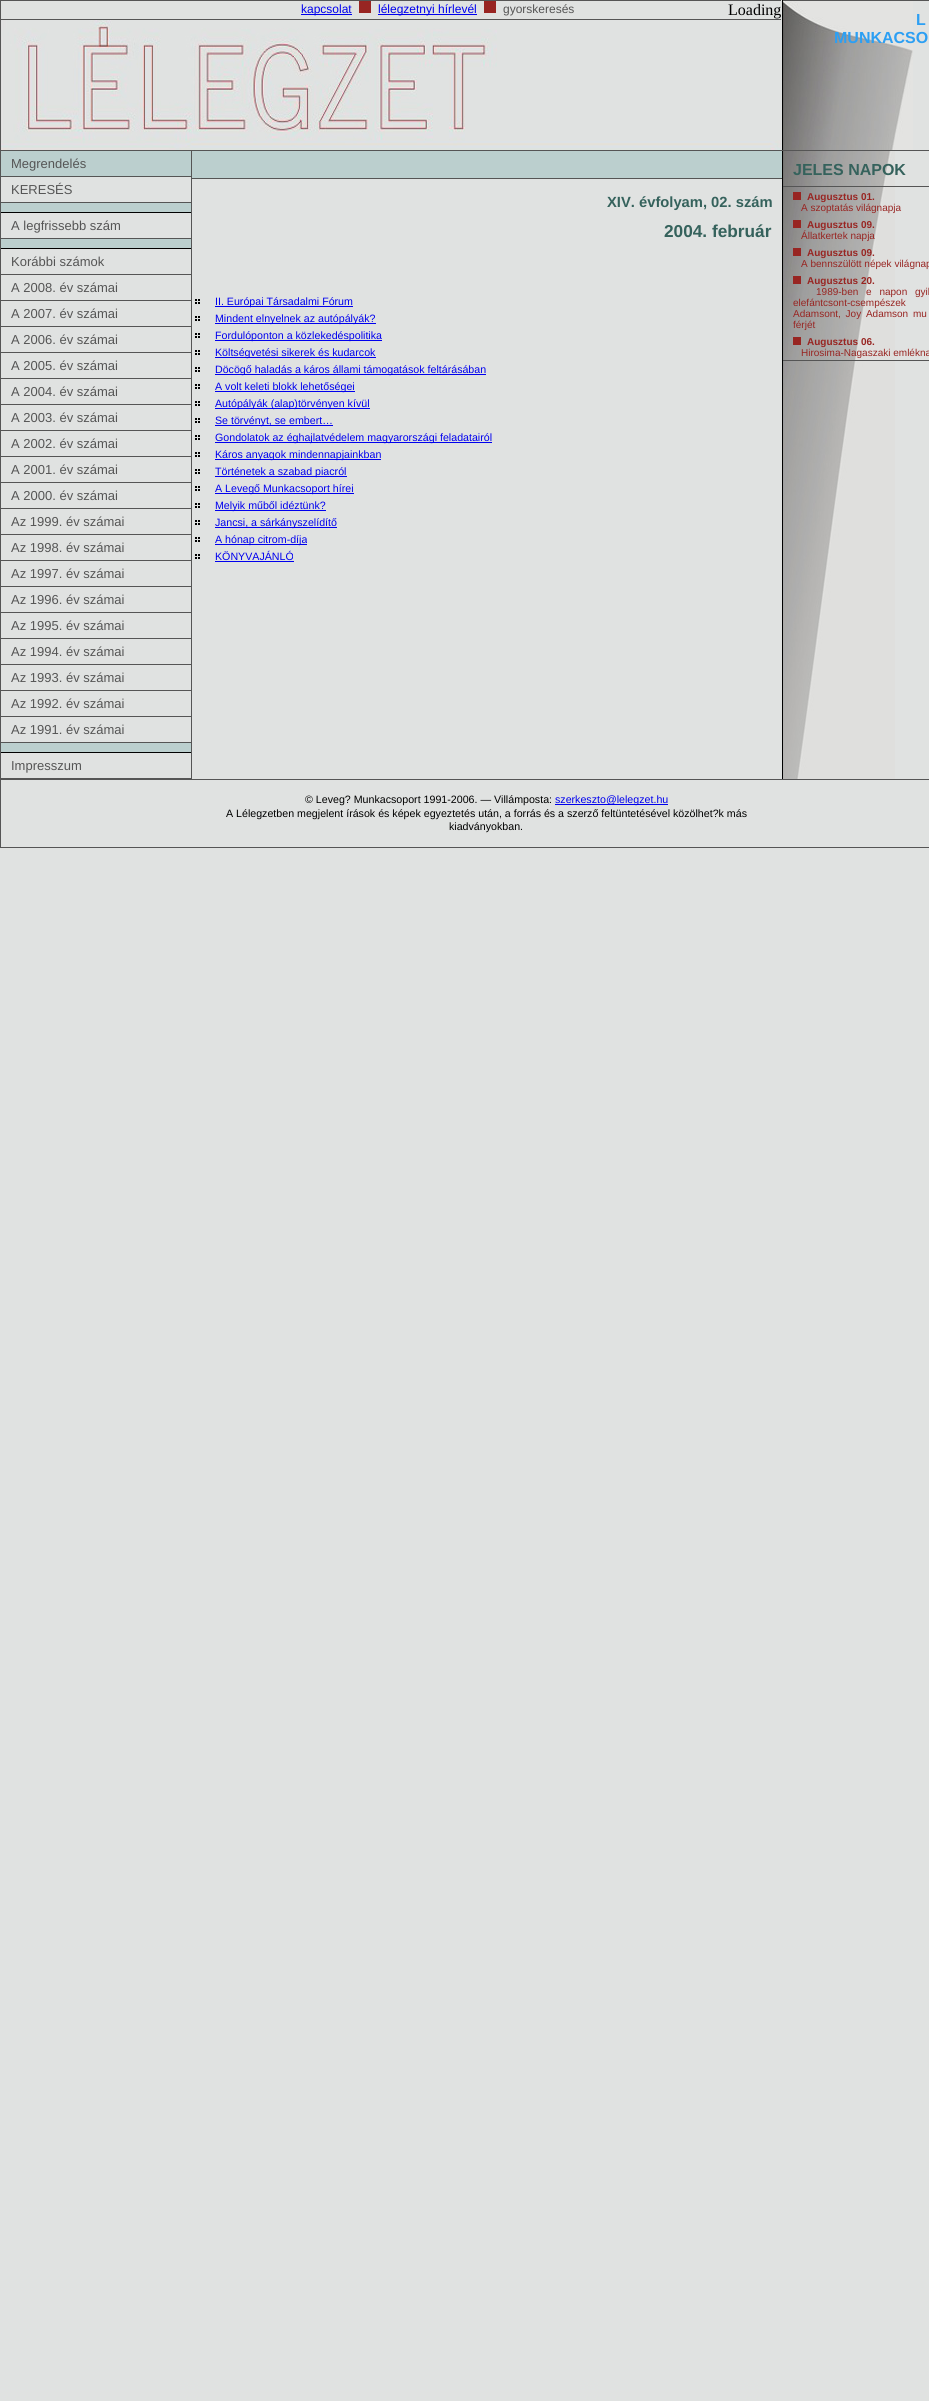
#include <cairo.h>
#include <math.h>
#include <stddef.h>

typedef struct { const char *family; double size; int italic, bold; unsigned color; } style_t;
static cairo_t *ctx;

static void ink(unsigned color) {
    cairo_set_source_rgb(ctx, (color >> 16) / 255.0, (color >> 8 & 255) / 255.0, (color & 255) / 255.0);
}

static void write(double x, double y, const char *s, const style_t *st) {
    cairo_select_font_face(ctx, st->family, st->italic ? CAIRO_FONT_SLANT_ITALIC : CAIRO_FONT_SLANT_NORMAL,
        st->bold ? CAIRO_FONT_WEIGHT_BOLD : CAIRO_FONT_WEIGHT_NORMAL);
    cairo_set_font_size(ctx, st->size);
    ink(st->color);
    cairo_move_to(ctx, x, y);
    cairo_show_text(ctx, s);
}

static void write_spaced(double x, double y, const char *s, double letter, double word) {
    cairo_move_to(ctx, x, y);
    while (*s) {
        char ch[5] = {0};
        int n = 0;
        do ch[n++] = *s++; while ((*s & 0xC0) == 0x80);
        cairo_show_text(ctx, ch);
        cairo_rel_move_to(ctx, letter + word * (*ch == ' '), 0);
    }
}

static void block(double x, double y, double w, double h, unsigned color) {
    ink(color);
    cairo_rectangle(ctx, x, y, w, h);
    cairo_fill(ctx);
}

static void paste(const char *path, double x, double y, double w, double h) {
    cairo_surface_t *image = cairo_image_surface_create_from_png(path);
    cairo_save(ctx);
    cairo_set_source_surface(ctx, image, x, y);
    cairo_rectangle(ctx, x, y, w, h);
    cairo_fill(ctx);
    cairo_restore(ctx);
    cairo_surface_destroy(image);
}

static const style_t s1 = {"Liberation Sans", 12, 0, 0, 0x0000ee};
static const style_t s2 = {"Liberation Sans", 12, 0, 0, 0x555555};
static const style_t s3 = {"Liberation Serif", 16, 0, 0, 0x000000};
static const style_t s4 = {"Liberation Sans", 16, 0, 1, 0x2c9ff3};
static const style_t s5 = {"Liberation Sans", 13, 0, 0, 0x555555};
static const style_t s6 = {"Liberation Sans", 14.75, 0, 1, 0x35625c};
static const style_t s7 = {"Liberation Sans", 17.25, 0, 1, 0x35625c};
static const style_t s8 = {"Liberation Sans", 10.65, 0, 0, 0x0000ee};
static const style_t s9 = {"Liberation Sans", 16, 0, 1, 0x35625c};
static const style_t s10 = {"Liberation Sans", 10, 0, 1, 0x982522};
static const style_t s11 = {"Liberation Sans", 10, 0, 0, 0x982522};
static const style_t s12 = {"Liberation Sans", 10.65, 0, 0, 0x000000};

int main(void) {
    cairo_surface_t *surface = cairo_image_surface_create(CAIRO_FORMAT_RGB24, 929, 2401);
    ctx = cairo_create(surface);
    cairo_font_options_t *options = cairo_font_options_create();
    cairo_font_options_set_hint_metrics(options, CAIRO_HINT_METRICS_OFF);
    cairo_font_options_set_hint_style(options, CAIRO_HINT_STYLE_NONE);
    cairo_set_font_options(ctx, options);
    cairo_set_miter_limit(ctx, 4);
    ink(0xe0e2e1);
    cairo_paint(ctx);
    block(0, 0, 1, 150, 0x555555);
    block(1, 0, 780, 1, 0x555555);
    block(301, 14, 51, 1, 0x0000ee);
    write(301, 13, "kapcsolat", &s1);
    block(359, 1, 12, 12, 0x982522);
    block(378, 14, 99, 1, 0x0000ee);
    write(378, 13, "lélegzetnyi hírlevél", &s1);
    block(484, 1, 12, 12, 0x982522);
    write(503, 13, "gyorskeresés", &s2);
    write(728, 15, "Loading", &s3);
    block(1, 19, 780, 1, 0x555555);
    paste("pic1.png", 1, 20, 780, 130);
    paste("pic2.png", 783, 1, 130, 149);
    block(782, 0, 147, 1, 0x555555);
    block(782, 0, 1, 150, 0x000000);
    write(916, 25, "L", &s4);
    write(834, 43, "MUNKACSO", &s4);
    block(0, 150, 929, 1, 0x555555);
    block(0, 151, 1, 628, 0x555555);
    block(1, 151, 190, 25, 0xbbcfce);
    block(1, 176, 190, 1, 0x555555);
    write(11, 168, "Megrendelés", &s5);
    block(1, 202, 190, 1, 0x555555);
    write(11, 194, "KERESÉS", &s5);
    block(1, 203, 190, 9, 0xbbcfce);
    block(1, 212, 190, 1, 0x000000);
    block(1, 238, 190, 1, 0x555555);
    write(11, 230, "A legfrissebb szám", &s5);
    block(1, 239, 190, 9, 0xbbcfce);
    block(1, 248, 190, 1, 0x000000);
    block(1, 274, 190, 1, 0x555555);
    write(11, 266, "Korábbi számok", &s5);
    block(1, 300, 190, 1, 0x555555);
    write(11, 292, "A 2008. év számai", &s5);
    block(1, 326, 190, 1, 0x555555);
    write(11, 318, "A 2007. év számai", &s5);
    block(1, 352, 190, 1, 0x555555);
    write(11, 344, "A 2006. év számai", &s5);
    block(1, 378, 190, 1, 0x555555);
    write(11, 370, "A 2005. év számai", &s5);
    block(1, 404, 190, 1, 0x555555);
    write(11, 396, "A 2004. év számai", &s5);
    block(1, 430, 190, 1, 0x555555);
    write(11, 422, "A 2003. év számai", &s5);
    block(1, 456, 190, 1, 0x555555);
    write(11, 448, "A 2002. év számai", &s5);
    block(1, 482, 190, 1, 0x555555);
    write(11, 474, "A 2001. év számai", &s5);
    block(1, 508, 190, 1, 0x555555);
    write(11, 500, "A 2000. év számai", &s5);
    block(1, 534, 190, 1, 0x555555);
    write(11, 526, "Az 1999. év számai", &s5);
    block(1, 560, 190, 1, 0x555555);
    write(11, 552, "Az 1998. év számai", &s5);
    block(1, 586, 190, 1, 0x555555);
    write(11, 578, "Az 1997. év számai", &s5);
    block(1, 612, 190, 1, 0x555555);
    write(11, 604, "Az 1996. év számai", &s5);
    block(1, 638, 190, 1, 0x555555);
    write(11, 630, "Az 1995. év számai", &s5);
    block(1, 664, 190, 1, 0x555555);
    write(11, 656, "Az 1994. év számai", &s5);
    block(1, 690, 190, 1, 0x555555);
    write(11, 682, "Az 1993. év számai", &s5);
    block(1, 716, 190, 1, 0x555555);
    write(11, 708, "Az 1992. év számai", &s5);
    block(1, 742, 190, 1, 0x555555);
    write(11, 734, "Az 1991. év számai", &s5);
    block(1, 743, 190, 9, 0xbbcfce);
    block(1, 752, 190, 1, 0x000000);
    block(1, 778, 190, 1, 0x555555);
    write(11, 770, "Impresszum", &s5);
    block(191, 151, 1, 628, 0x555555);
    block(192, 151, 590, 27, 0xbbcfce);
    block(192, 178, 590, 1, 0x555555);
    write(607, 207, "XIV. évfolyam, 02. szám", &s6);
    write(664, 237, "2004. február", &s7);
    paste("pic3.png", 195, 299, 5, 5);
    block(215, 306, 138, 1, 0x0000ee);
    write(215, 305, "II. Európai Társadalmi Fórum", &s8);
    paste("pic3.png", 195, 316, 5, 5);
    block(215, 323, 161, 1, 0x0000ee);
    write(215, 322, "Mindent elnyelnek az autópályák?", &s8);
    paste("pic3.png", 195, 333, 5, 5);
    block(215, 340, 167, 1, 0x0000ee);
    write(215, 339, "Fordulóponton a közlekedéspolitika", &s8);
    paste("pic3.png", 195, 350, 5, 5);
    block(215, 357, 161, 1, 0x0000ee);
    write(215, 356, "Költségvetési sikerek és kudarcok", &s8);
    paste("pic3.png", 195, 367, 5, 5);
    block(215, 374, 271, 1, 0x0000ee);
    write(215, 373, "Döcögő haladás a káros állami támogatások feltárásában", &s8);
    paste("pic3.png", 195, 384, 5, 5);
    block(215, 391, 140, 1, 0x0000ee);
    write(215, 390, "A volt keleti blokk lehetőségei", &s8);
    paste("pic3.png", 195, 401, 5, 5);
    block(215, 408, 155, 1, 0x0000ee);
    write(215, 407, "Autópályák (alap)törvényen kívül", &s8);
    paste("pic3.png", 195, 418, 5, 5);
    block(215, 425, 118, 1, 0x0000ee);
    write(215, 424, "Se törvényt, se embert…", &s8);
    paste("pic3.png", 195, 435, 5, 5);
    block(215, 442, 277, 1, 0x0000ee);
    write(215, 441, "Gondolatok az éghajlatvédelem magyarországi feladatairól", &s8);
    paste("pic3.png", 195, 452, 5, 5);
    block(215, 459, 166, 1, 0x0000ee);
    write(215, 458, "Káros anyagok mindennapjainkban", &s8);
    paste("pic3.png", 195, 469, 5, 5);
    block(215, 476, 132, 1, 0x0000ee);
    write(215, 475, "Történetek a szabad piacról", &s8);
    paste("pic3.png", 195, 486, 5, 5);
    block(215, 493, 139, 1, 0x0000ee);
    write(215, 492, "A Levegő Munkacsoport hírei", &s8);
    paste("pic3.png", 195, 503, 5, 5);
    block(215, 510, 111, 1, 0x0000ee);
    write(215, 509, "Melyik műből idéztünk?", &s8);
    paste("pic3.png", 195, 520, 5, 5);
    block(215, 527, 122, 1, 0x0000ee);
    write(215, 526, "Jancsi, a sárkányszelídítő", &s8);
    paste("pic3.png", 195, 537, 5, 5);
    block(215, 544, 92, 1, 0x0000ee);
    write(215, 543, "A hónap citrom-díja", &s8);
    paste("pic3.png", 195, 554, 5, 5);
    write(215, 560, "KÖNYVAJÁNLÓ", &s8);
    block(215, 561, 79, 1, 0x0000ee);
    paste("pic4.png", 783, 151, 112, 628);
    block(782, 151, 1, 628, 0x000000);
    write(793, 175, "JELES NAPOK", &s9);
    block(783, 186, 146, 1, 0x555555);
    write(807, 200, "Augusztus 01.", &s10);
    block(793, 192, 8, 8, 0x982522);
    write(801, 211, "A szoptatás világnapja", &s11);
    write(807, 228, "Augusztus 09.", &s10);
    block(793, 220, 8, 8, 0x982522);
    write(801, 239, "Állatkertek napja", &s11);
    write(807, 256, "Augusztus 09.", &s10);
    block(793, 248, 8, 8, 0x982522);
    write(801, 267, "A bennszülött népek világnap", &s11);
    write(807, 284, "Augusztus 20.", &s10);
    block(793, 276, 8, 8, 0x982522);
    cairo_select_font_face(ctx, "Liberation Sans", CAIRO_FONT_SLANT_NORMAL, CAIRO_FONT_WEIGHT_NORMAL);
    write_spaced(816, 295, "1989-ben e napon gyil", 0, 5);
    write_spaced(793, 306, "elefántcsont-csempészek", 0, 41);
    write_spaced(793, 317, "Adamsont, Joy Adamson mu", 0, 2);
    write(793, 328, "férjét", &s11);
    write(807, 345, "Augusztus 06.", &s10);
    block(793, 337, 8, 8, 0x982522);
    write(801, 356, "Hirosima-Nagaszaki emlékna", &s11);
    block(783, 360, 146, 1, 0x555555);
    block(0, 779, 929, 1, 0x555555);
    block(0, 780, 1, 67, 0x555555);
    write(305, 803, "© Leveg? Munkacsoport 1991-2006. — Villámposta:", &s12);
    block(555, 804, 113, 1, 0x0000ee);
    write(555, 803, "szerkeszto@lelegzet.hu", &s8);
    write(226, 817, "A Lélegzetben megjelent írások és képek egyeztetés után, a forrás és a szerző feltüntetésével közölhet?k más", &s12);
    write(449, 830, "kiadványokban.", &s12);
    block(0, 847, 929, 1, 0x555555);
    cairo_surface_write_to_png(surface, "screenshot.png");
    cairo_font_options_destroy(options);
    cairo_destroy(ctx);
    cairo_surface_destroy(surface);
    return 0;
}
